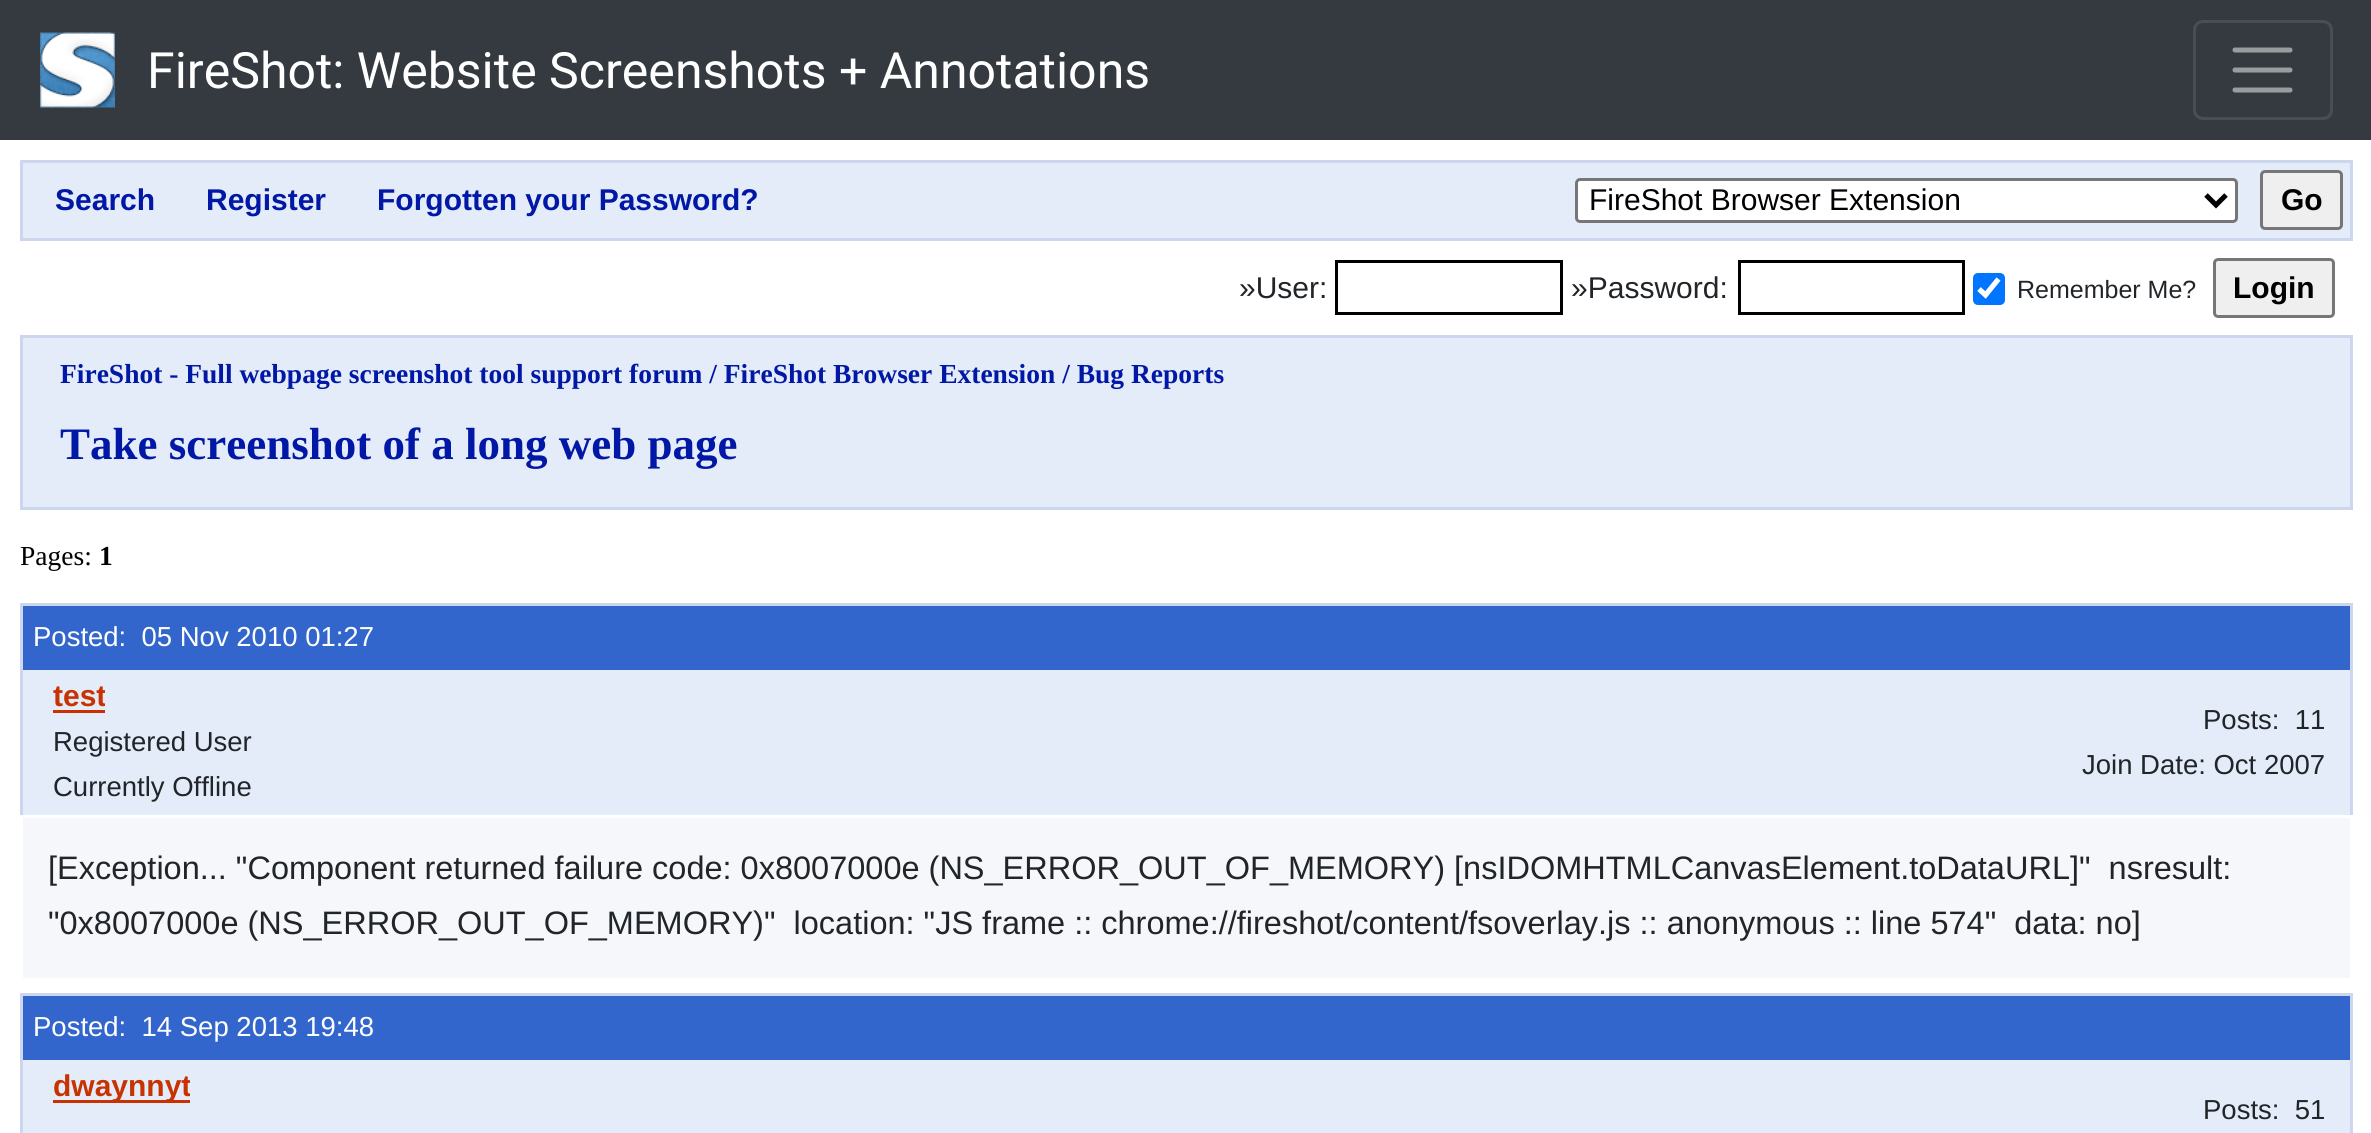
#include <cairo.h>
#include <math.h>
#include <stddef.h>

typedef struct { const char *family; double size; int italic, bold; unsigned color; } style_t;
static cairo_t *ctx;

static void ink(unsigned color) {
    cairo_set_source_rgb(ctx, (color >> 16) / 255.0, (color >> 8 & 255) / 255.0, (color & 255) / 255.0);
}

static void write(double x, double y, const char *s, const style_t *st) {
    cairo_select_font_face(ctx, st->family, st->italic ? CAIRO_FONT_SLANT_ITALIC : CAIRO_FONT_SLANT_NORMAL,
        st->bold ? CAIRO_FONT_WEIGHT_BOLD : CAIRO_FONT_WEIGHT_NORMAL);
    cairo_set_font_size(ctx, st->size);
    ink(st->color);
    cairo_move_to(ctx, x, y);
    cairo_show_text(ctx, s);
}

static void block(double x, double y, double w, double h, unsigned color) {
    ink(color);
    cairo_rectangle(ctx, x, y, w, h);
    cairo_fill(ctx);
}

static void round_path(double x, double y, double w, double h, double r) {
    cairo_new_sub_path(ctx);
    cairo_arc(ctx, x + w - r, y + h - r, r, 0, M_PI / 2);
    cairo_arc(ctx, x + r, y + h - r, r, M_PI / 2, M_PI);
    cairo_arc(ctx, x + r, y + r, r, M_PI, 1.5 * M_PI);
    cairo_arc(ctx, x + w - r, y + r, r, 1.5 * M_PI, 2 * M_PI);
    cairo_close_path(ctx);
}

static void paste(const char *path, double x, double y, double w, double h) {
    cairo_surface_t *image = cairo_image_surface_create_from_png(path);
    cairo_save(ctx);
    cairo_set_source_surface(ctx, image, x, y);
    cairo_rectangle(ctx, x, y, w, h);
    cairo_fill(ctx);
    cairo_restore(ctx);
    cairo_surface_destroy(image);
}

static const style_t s1 = {"Roboto", 50, 0, 0, 0xffffff};
static const style_t s2 = {"Liberation Sans", 30, 0, 1, 0x0018a5};
static const style_t s3 = {"Liberation Sans", 30, 0, 0, 0x000000};
static const style_t s4 = {"Liberation Sans", 30, 0, 1, 0x000000};
static const style_t s5 = {"Liberation Sans", 30, 0, 0, 0x212529};
static const style_t s6 = {"Liberation Sans", 25, 0, 0, 0x212529};
static const style_t s7 = {"Liberation Serif", 27.5, 0, 1, 0x0018a5};
static const style_t s8 = {"Liberation Serif", 45, 0, 1, 0x0018a5};
static const style_t s9 = {"Liberation Serif", 27.5, 0, 0, 0x000000};
static const style_t s10 = {"Liberation Serif", 27.5, 0, 1, 0x000000};
static const style_t s11 = {"Liberation Sans", 27.5, 0, 0, 0xffffff};
static const style_t s12 = {"Liberation Sans", 30, 0, 1, 0xc73200};
static const style_t s13 = {"Liberation Sans", 27.5, 0, 0, 0x212529};
static const style_t s14 = {"Liberation Sans", 32.5, 0, 0, 0x212529};

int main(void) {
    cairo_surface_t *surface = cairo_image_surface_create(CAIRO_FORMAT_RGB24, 2371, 1133);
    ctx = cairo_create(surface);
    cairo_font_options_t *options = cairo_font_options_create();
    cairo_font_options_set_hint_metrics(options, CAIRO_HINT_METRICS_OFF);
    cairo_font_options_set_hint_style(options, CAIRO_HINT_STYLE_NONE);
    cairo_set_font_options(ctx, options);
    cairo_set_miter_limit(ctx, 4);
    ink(0xffffff);
    cairo_paint(ctx);
    block(0, 0, 2371, 140, 0x343a40);
    paste("pic1.png", 40, 32, 75, 76);
    write(147, 88, "FireShot: Website Screenshots + Annotations", &s1);
    round_path(2194.5, 21.5, 137, 97, 8.5);
    ink(0x484e53);
    cairo_set_line_width(ctx, 3);
    cairo_stroke(ctx);
    cairo_new_path(ctx);
    cairo_move_to(ctx, 2235, 50);
    cairo_line_to(ctx, 2290, 50);
    cairo_move_to(ctx, 2235, 70);
    cairo_line_to(ctx, 2290, 70);
    cairo_move_to(ctx, 2235, 90);
    cairo_line_to(ctx, 2290, 90);
    ink(0x9a9da0);
    cairo_set_line_width(ctx, 5);
    cairo_set_line_cap(ctx, CAIRO_LINE_CAP_ROUND);
    cairo_stroke(ctx);
    block(23, 163, 2327, 75, 0xe5ecf9);
    block(20, 160, 2333, 3, 0xccd7ed);
    block(2350, 160, 3, 80, 0xccd7ed);
    block(20, 238, 2333, 3, 0xccd7ed);
    block(20, 160, 3, 80, 0xccd7ed);
    write(55, 210, "Search", &s2);
    write(206, 210, "Register", &s2);
    write(377, 210, "Forgotten your Password?", &s2);
    ink(0xffffff);
    round_path(1576.5, 179.5, 660, 42, 3.5);
    cairo_fill_preserve(ctx);
    ink(0x767676);
    cairo_set_line_width(ctx, 3);
    cairo_set_line_cap(ctx, CAIRO_LINE_CAP_BUTT);
    cairo_stroke(ctx);
    cairo_new_path(ctx);
    cairo_move_to(ctx, 2206, 195);
    cairo_line_to(ctx, 2216, 205);
    cairo_line_to(ctx, 2226, 195);
    ink(0x000000);
    cairo_set_line_width(ctx, 5);
    cairo_stroke(ctx);
    write(1589, 210, "FireShot Browser Extension", &s3);
    ink(0xefefef);
    round_path(2261.5, 171.5, 80, 57, 3.5);
    cairo_fill_preserve(ctx);
    ink(0x767676);
    cairo_set_line_width(ctx, 3);
    cairo_stroke(ctx);
    write(2281, 210, "Go", &s4);
    write(1239, 298, "»User:", &s5);
    cairo_rectangle(ctx, 1336.5, 261.5, 225, 52);
    ink(0x000000);
    cairo_stroke(ctx);
    write(1571, 298, "»Password:", &s5);
    cairo_rectangle(ctx, 1739.5, 261.5, 224, 52);
    ink(0x000000);
    cairo_stroke(ctx);
    ink(0x0075ff);
    round_path(1973, 273, 32, 32, 5);
    cairo_fill(ctx);
    cairo_new_path(ctx);
    cairo_move_to(ctx, 1979, 289);
    cairo_line_to(ctx, 1985.5, 295);
    cairo_line_to(ctx, 1998.5, 279);
    ink(0xffffff);
    cairo_set_line_width(ctx, 5.2);
    cairo_stroke(ctx);
    write(2017, 298, "Remember Me?", &s6);
    ink(0xefefef);
    round_path(2214.5, 259.5, 119, 57, 3.5);
    cairo_fill_preserve(ctx);
    ink(0x767676);
    cairo_set_line_width(ctx, 3);
    cairo_stroke(ctx);
    write(2233, 298, "Login", &s4);
    ink(0xe5ecf9);
    cairo_rectangle(ctx, 21.5, 336.5, 2330, 172);
    cairo_fill_preserve(ctx);
    ink(0xccd7ed);
    cairo_stroke(ctx);
    write(60, 383, "FireShot - Full webpage screenshot tool support forum / FireShot Browser Extension / Bug Reports", &s7);
    write(60, 459, "Take screenshot of a long web page", &s8);
    write(20, 565, "Pages:", &s9);
    write(99, 565, "1", &s10);
    block(20, 603, 2333, 3, 0xccd7ed);
    block(2350, 603, 3, 212, 0xccd7ed);
    block(20, 603, 3, 212, 0xccd7ed);
    block(23, 606, 2327, 64, 0x3366cc);
    write(33, 646, "Posted:  05 Nov 2010 01:27", &s11);
    block(23, 670, 2327, 145, 0xe5ecf9);
    cairo_save(ctx);
    cairo_rectangle(ctx, 53, 675, 52, 45);
    cairo_clip(ctx);
    write(53, 706, "test", &s12);
    cairo_restore(ctx);
    block(53, 710, 52, 3, 0xc73200);
    write(53, 751, "Registered User", &s13);
    write(53, 796, "Currently Offline", &s13);
    write(2203, 729, "Posts:  11", &s13);
    write(2082, 774, "Join Date: Oct 2007", &s13);
    block(23, 818, 2327, 160, 0xf5f7fb);
    write(48, 879, "[Exception... \"Component returned failure code: 0x8007000e (NS_ERROR_OUT_OF_MEMORY) [nsIDOMHTMLCanvasElement.toDataURL]\"  nsresult:", &s14);
    write(48, 934, "\"0x8007000e (NS_ERROR_OUT_OF_MEMORY)\"  location: \"JS frame :: chrome://fireshot/content/fsoverlay.js :: anonymous :: line 574\"  data: no]", &s14);
    block(20, 993, 2333, 3, 0xccd7ed);
    block(2350, 993, 3, 140, 0xccd7ed);
    block(20, 993, 3, 140, 0xccd7ed);
    block(23, 996, 2327, 64, 0x3366cc);
    write(33, 1036, "Posted:  14 Sep 2013 19:48", &s11);
    block(23, 1060, 2327, 73, 0xe5ecf9);
    block(53, 1100, 137, 3, 0xc73200);
    cairo_save(ctx);
    cairo_rectangle(ctx, 53, 1065, 137, 45);
    cairo_clip(ctx);
    write(53, 1096, "dwaynnyt", &s12);
    cairo_restore(ctx);
    write(2203, 1119, "Posts:  51", &s13);
    cairo_surface_write_to_png(surface, "screenshot.png");
    cairo_font_options_destroy(options);
    cairo_destroy(ctx);
    cairo_surface_destroy(surface);
    return 0;
}
